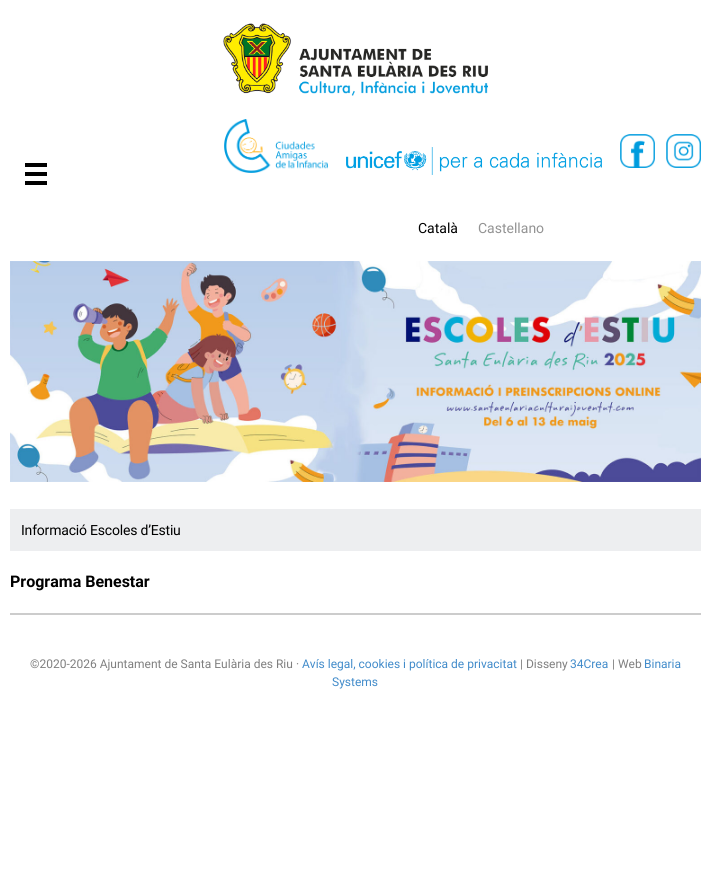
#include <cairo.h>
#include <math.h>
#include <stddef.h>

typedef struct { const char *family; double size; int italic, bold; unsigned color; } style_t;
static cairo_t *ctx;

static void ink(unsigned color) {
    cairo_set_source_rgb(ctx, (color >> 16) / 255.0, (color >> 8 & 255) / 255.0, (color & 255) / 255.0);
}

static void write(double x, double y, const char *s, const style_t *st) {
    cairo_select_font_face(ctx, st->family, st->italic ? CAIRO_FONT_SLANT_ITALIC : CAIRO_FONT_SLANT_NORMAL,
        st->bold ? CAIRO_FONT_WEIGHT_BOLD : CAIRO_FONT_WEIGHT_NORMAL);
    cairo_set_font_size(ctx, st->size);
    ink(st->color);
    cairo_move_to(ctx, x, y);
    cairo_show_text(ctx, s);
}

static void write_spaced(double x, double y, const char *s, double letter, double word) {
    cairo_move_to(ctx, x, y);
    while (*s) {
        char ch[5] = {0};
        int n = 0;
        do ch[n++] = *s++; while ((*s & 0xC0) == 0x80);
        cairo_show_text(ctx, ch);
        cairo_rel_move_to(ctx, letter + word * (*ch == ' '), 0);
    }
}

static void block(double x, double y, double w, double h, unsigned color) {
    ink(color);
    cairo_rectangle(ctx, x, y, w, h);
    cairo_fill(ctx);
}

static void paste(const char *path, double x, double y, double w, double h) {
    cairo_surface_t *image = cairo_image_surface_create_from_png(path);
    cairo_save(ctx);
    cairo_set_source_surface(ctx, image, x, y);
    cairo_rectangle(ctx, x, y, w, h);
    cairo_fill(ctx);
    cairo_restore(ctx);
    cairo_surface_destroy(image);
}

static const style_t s1 = {"Roboto", 14, 0, 0, 0x000000};
static const style_t s2 = {"Roboto", 14, 0, 0, 0x939393};
static const style_t s3 = {"Roboto", 16, 0, 1, 0x000000};
static const style_t s4 = {"Roboto", 12, 0, 0, 0x7f7f7f};
static const style_t s5 = {"Roboto", 12, 0, 0, 0x418bca};

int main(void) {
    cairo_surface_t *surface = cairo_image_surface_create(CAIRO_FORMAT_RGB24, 711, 893);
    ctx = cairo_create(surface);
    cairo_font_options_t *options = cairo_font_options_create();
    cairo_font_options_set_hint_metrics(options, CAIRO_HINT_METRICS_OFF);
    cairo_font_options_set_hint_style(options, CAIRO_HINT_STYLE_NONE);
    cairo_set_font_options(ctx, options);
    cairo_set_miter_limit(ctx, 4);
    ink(0xffffff);
    cairo_paint(ctx);
    paste("pic1.png", 223, 23, 265, 73);
    paste("pic2.png", 224, 119, 104, 54);
    paste("pic3.png", 346, 147, 256, 28);
    paste("pic4.png", 620, 134, 35, 34);
    paste("pic5.png", 666, 134, 35, 34);
    block(25, 163, 22, 4, 0x000000);
    block(25, 172, 22, 4, 0x000000);
    block(25, 181, 22, 4, 0x000000);
    write(418, 233, "Català", &s1);
    write(478, 233, "Castellano", &s2);
    paste("pic6.png", 10, 261, 691, 221);
    block(10, 509, 691, 42, 0xedeef0);
    ink(0x000000);
    write_spaced(21, 535, "Informació Escoles d’Estiu", -0.2, 0);
    write(10, 587, "Programa Benestar", &s3);
    block(10, 613, 691, 2, 0xcccccc);
    write(30, 668, "©2020-2026 Ajuntament de Santa Eulària des Riu ·", &s4);
    write(302, 668, "Avís legal, cookies i política de privacitat", &s5);
    write(520, 668, "| Disseny", &s4);
    write(570, 668, "34Crea", &s5);
    write(612, 668, "| Web", &s4);
    write(644, 668, "Binaria", &s5);
    write(332, 686, "Systems", &s5);
    cairo_surface_write_to_png(surface, "screenshot.png");
    cairo_font_options_destroy(options);
    cairo_destroy(ctx);
    cairo_surface_destroy(surface);
    return 0;
}
